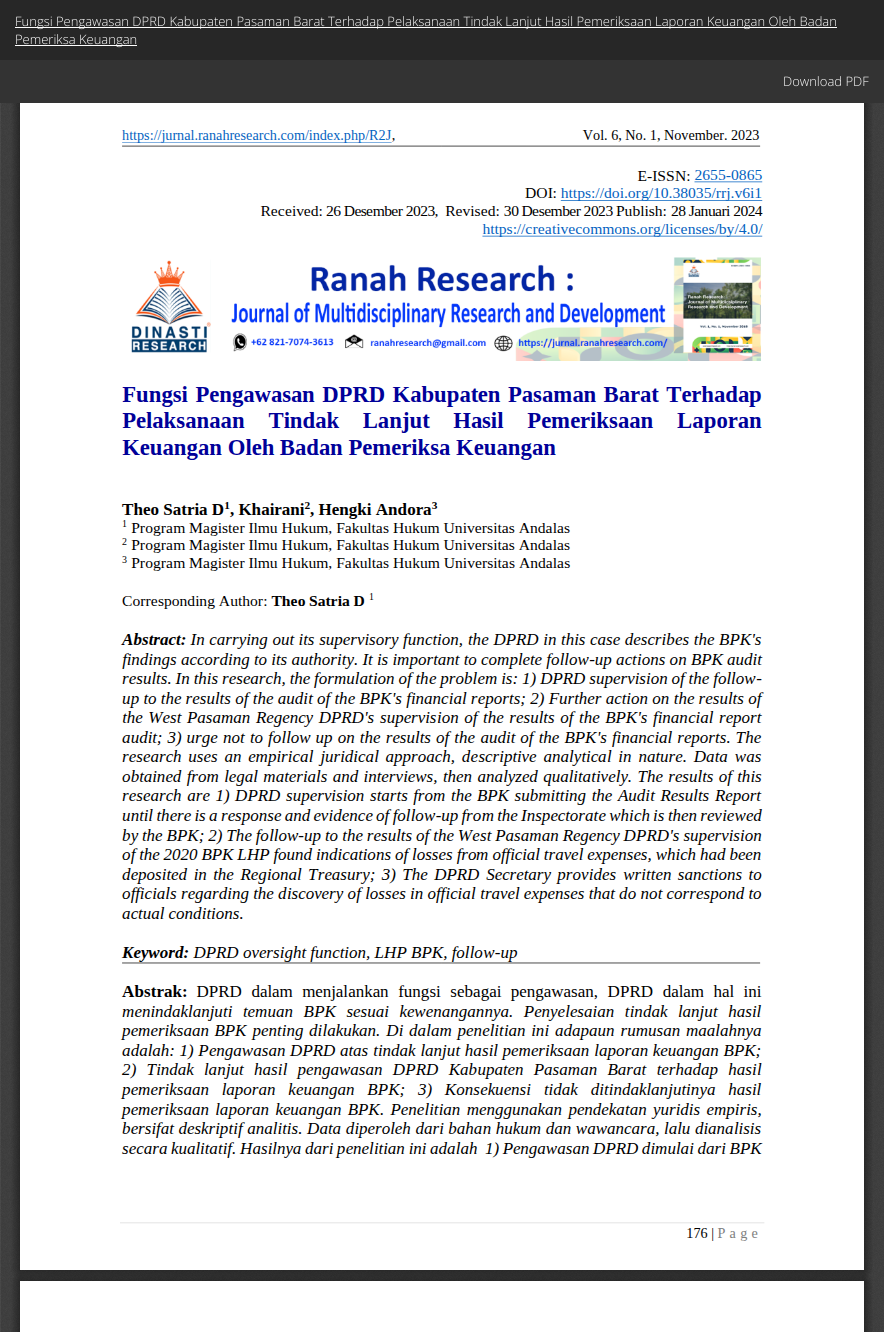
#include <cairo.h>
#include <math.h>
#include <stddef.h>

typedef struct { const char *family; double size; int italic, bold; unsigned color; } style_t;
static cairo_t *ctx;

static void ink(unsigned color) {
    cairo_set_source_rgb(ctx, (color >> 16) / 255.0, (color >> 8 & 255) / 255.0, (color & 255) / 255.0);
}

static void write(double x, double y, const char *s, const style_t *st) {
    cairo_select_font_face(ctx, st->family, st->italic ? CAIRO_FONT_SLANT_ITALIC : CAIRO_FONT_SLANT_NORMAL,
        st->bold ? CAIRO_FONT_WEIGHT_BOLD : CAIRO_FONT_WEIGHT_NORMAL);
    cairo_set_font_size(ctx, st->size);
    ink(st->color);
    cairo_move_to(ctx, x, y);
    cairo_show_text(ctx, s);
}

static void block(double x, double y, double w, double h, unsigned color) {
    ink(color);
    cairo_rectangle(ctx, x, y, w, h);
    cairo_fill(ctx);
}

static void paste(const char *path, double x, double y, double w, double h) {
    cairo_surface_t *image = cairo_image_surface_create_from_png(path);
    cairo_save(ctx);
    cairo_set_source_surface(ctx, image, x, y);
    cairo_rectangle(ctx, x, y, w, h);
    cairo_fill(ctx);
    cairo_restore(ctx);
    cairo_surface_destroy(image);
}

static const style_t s1 = {"Open Sans Light", 13, 0, 0, 0xffffff};

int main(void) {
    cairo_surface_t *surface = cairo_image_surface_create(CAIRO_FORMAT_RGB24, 884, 1332);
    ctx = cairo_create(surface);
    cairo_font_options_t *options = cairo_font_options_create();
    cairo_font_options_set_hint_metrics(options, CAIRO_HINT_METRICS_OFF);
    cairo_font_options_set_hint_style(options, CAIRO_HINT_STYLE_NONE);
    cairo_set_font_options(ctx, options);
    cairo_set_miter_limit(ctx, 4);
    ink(0xffffff);
    cairo_paint(ctx);
    block(0, 60, 884, 43, 0x333333);
    block(0, 0, 884, 60, 0x272727);
    block(15, 27, 822, 1, 0xffffff);
    write(15, 26, "Fungsi Pengawasan DPRD Kabupaten Pasaman Barat Terhadap Pelaksanaan Tindak Lanjut Hasil Pemeriksaan Laporan Keuangan Oleh Badan", &s1);
    block(15, 45, 122, 1, 0xffffff);
    write(15, 44, "Pemeriksa Keuangan", &s1);
    write(783, 86, "Download PDF", &s1);
    paste("pic1.png", 0, 103, 884, 1229);
    cairo_surface_write_to_png(surface, "screenshot.png");
    cairo_font_options_destroy(options);
    cairo_destroy(ctx);
    cairo_surface_destroy(surface);
    return 0;
}
